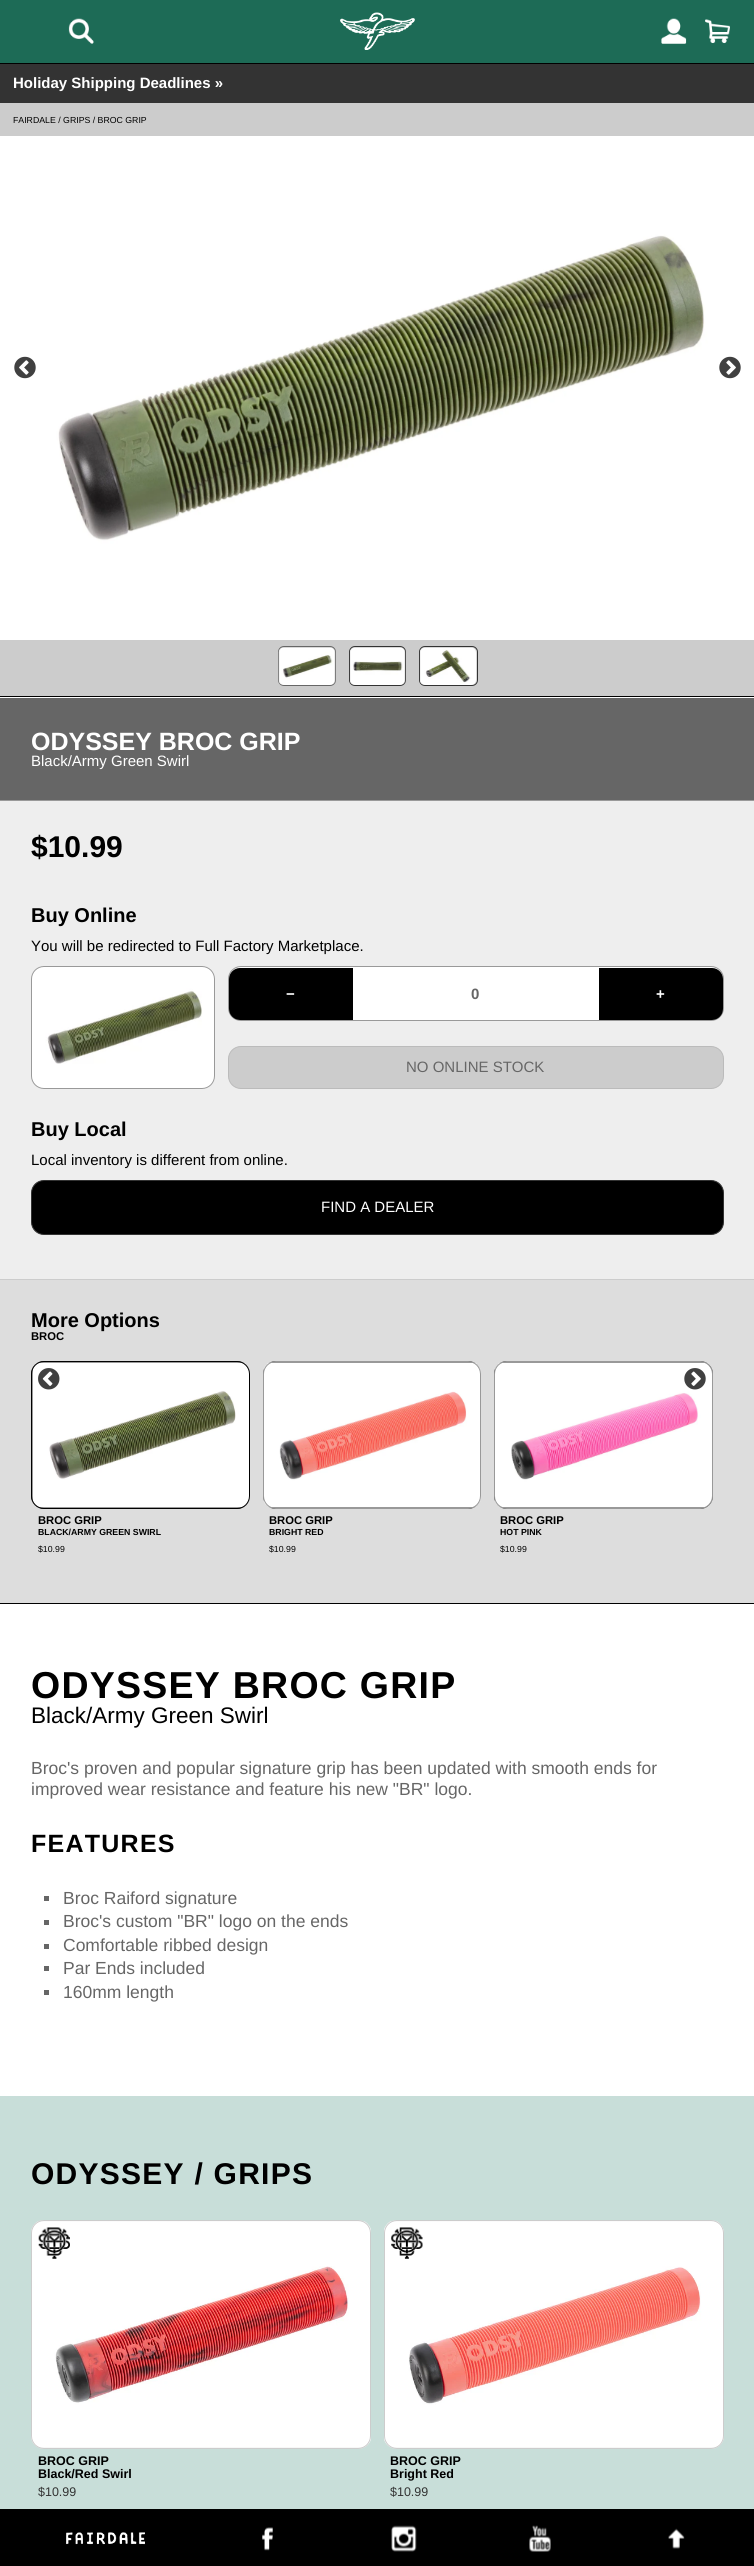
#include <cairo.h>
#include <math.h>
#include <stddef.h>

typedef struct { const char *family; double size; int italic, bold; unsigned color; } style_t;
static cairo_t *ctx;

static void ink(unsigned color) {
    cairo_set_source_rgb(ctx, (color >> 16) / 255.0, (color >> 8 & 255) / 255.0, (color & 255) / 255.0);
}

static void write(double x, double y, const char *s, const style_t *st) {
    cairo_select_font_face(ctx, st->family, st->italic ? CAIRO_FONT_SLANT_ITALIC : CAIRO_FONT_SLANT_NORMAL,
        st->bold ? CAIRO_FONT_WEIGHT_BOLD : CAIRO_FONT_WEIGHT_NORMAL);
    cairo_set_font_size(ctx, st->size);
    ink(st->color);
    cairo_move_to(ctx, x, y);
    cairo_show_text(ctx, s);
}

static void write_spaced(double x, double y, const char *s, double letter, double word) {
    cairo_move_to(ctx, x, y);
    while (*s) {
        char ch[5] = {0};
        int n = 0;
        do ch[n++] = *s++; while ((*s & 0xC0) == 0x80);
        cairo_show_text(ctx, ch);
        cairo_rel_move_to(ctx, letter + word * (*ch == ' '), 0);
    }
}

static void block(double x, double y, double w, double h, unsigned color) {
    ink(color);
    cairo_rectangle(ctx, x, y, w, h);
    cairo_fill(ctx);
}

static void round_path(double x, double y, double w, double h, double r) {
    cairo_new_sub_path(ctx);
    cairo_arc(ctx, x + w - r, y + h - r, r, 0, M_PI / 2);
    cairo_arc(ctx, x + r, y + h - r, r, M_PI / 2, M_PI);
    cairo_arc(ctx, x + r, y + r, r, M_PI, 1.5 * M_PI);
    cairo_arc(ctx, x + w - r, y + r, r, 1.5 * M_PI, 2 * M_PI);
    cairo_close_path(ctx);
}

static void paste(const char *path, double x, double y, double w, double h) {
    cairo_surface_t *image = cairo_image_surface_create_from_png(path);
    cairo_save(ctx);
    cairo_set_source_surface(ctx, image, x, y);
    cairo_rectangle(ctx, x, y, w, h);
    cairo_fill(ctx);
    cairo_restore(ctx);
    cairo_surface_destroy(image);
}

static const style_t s1 = {"Liberation Sans", 15, 0, 1, 0xffffff};
static const style_t s2 = {"Liberation Sans", 8.75, 0, 0, 0x000000};
static const style_t s3 = {"Liberation Sans", 25, 0, 1, 0xffffff};
static const style_t s4 = {"Liberation Sans", 15, 0, 0, 0xffffff};
static const style_t s5 = {"Liberation Sans", 30, 0, 1, 0x000000};
static const style_t s6 = {"Liberation Sans", 20, 0, 1, 0x000000};
static const style_t s7 = {"Liberation Sans", 15, 0, 0, 0x000000};
static const style_t s8 = {"Liberation Sans", 15, 0, 1, 0x666666};
static const style_t s9 = {"Liberation Sans", 15, 0, 0, 0x666666};
static const style_t s10 = {"Liberation Sans", 11.25, 0, 1, 0x000000};
static const style_t s11 = {"Liberation Sans", 8.75, 0, 1, 0x000000};
static const style_t s12 = {"Liberation Sans", 22.5, 0, 0, 0x000000};
static const style_t s13 = {"Liberation Sans", 17.5, 0, 0, 0x666666};
static const style_t s14 = {"Liberation Sans", 12.5, 0, 1, 0x000000};
static const style_t s15 = {"Liberation Sans", 12.5, 0, 0, 0x333333};

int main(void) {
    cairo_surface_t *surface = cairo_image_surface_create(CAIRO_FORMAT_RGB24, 754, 2566);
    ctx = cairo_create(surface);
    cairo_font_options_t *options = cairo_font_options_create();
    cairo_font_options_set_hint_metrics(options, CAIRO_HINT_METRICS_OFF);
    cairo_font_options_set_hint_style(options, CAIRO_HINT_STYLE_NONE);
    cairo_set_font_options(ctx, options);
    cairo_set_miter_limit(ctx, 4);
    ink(0xffffff);
    cairo_paint(ctx);
    block(0, 0, 754, 63, 0x1d6b56);
    block(0, 63, 754, 1, 0x000000);
    paste("pic1.png", 68, 18, 26, 26);
    paste("pic2.png", 340, 12, 75, 38);
    paste("pic3.png", 661, 18, 26, 26);
    paste("pic4.png", 705, 19, 25, 25);
    block(0, 64, 754, 39, 0x333333);
    write(13, 88, "Holiday Shipping Deadlines »", &s1);
    block(0, 103, 754, 33, 0xcccccc);
    write(13, 123, "FAIRDALE / GRIPS / BROC GRIP", &s2);
    paste("pic5.png", 0, 136, 754, 504);
    paste("pic6.png", 14, 356, 22, 23);
    paste("pic7.png", 719, 356, 22, 23);
    block(0, 640, 754, 56, 0xcccccc);
    round_path(278.5, 646.5, 57, 39, 5.5);
    ink(0x666666);
    cairo_set_line_width(ctx, 1);
    cairo_stroke(ctx);
    paste("pic8.png", 278, 647, 58, 38);
    round_path(349.5, 646.5, 56, 39, 5.5);
    ink(0x333333);
    cairo_stroke(ctx);
    paste("pic9.png", 349, 647, 57, 38);
    round_path(419.5, 646.5, 58, 39, 5.5);
    cairo_stroke(ctx);
    paste("pic10.png", 419, 647, 58, 38);
    block(0, 696, 754, 1, 0x000000);
    block(0, 1603, 754, 1, 0x000000);
    block(0, 698, 754, 102, 0x666666);
    block(0, 800, 754, 1, 0x999999);
    write(31, 750, "ODYSSEY BROC GRIP", &s3);
    write(31, 766, "Black/Army Green Swirl", &s4);
    block(0, 801, 754, 478, 0xeeeeee);
    write(31, 857, "$10.99", &s5);
    write(31, 922, "Buy Online", &s6);
    write(31, 951, "You will be redirected to Full Factory Marketplace.", &s7);
    ink(0xffffff);
    round_path(31, 966, 184, 123, 13);
    cairo_fill(ctx);
    paste("pic11.png", 36, 968, 177, 116);
    round_path(31.5, 966.5, 183, 122, 12.5);
    ink(0x999999);
    cairo_stroke(ctx);
    ink(0xffffff);
    round_path(228.5, 966.5, 495, 54, 12.5);
    cairo_fill_preserve(ctx);
    ink(0x999999);
    cairo_stroke(ctx);
    ink(0x000000);
    cairo_new_path(ctx);
    cairo_move_to(ctx, 240, 968);
    cairo_line_to(ctx, 353, 968);
    cairo_line_to(ctx, 353, 1020);
    cairo_line_to(ctx, 240, 1020);
    cairo_curve_to(ctx, 234, 1020, 229, 1015, 229, 1009);
    cairo_line_to(ctx, 229, 979);
    cairo_curve_to(ctx, 229, 973, 234, 968, 240, 968);
    cairo_close_path(ctx);
    cairo_fill(ctx);
    write(286, 999, "−", &s1);
    write(471, 999, "0", &s8);
    ink(0x000000);
    cairo_new_path(ctx);
    cairo_move_to(ctx, 599, 968);
    cairo_line_to(ctx, 712, 968);
    cairo_curve_to(ctx, 718, 968, 723, 973, 723, 979);
    cairo_line_to(ctx, 723, 1009);
    cairo_curve_to(ctx, 723, 1015, 718, 1020, 712, 1020);
    cairo_line_to(ctx, 599, 1020);
    cairo_close_path(ctx);
    cairo_fill(ctx);
    write(656, 999, "+", &s1);
    ink(0xcccccc);
    round_path(228.5, 1046.5, 495, 42, 12.5);
    cairo_fill_preserve(ctx);
    ink(0xbbbbbb);
    cairo_stroke(ctx);
    write(406, 1072, "NO ONLINE STOCK", &s9);
    write(31, 1136, "Buy Local", &s6);
    write(31, 1165, "Local inventory is different from online.", &s7);
    round_path(31.5, 1180.5, 692, 54, 12.5);
    cairo_fill_preserve(ctx);
    ink(0x333333);
    cairo_stroke(ctx);
    write(321, 1212, "FIND A DEALER", &s4);
    block(0, 1280, 754, 323, 0xdddddd);
    block(0, 1279, 754, 1, 0xcccccc);
    write(31, 1327, "More Options", &s6);
    write(31, 1340, "BROC", &s10);
    ink(0x333333);
    round_path(31, 1361, 219, 148, 13);
    cairo_fill(ctx);
    paste("pic14.png", 32, 1362, 218, 146);
    round_path(31.5, 1361.5, 218, 147, 12.5);
    ink(0x000000);
    cairo_stroke(ctx);
    paste("pic12.png", 38, 1368, 22, 22);
    ink(0x333333);
    round_path(494, 1361, 219, 148, 13);
    cairo_fill(ctx);
    paste("pic16.png", 495, 1362, 218, 146);
    round_path(494.5, 1361.5, 218, 147, 12.5);
    ink(0x999999);
    cairo_stroke(ctx);
    paste("pic13.png", 684, 1368, 22, 22);
    write(38, 1524, "BROC GRIP", &s10);
    write(38, 1535, "BLACK/ARMY GREEN SWIRL", &s11);
    write(38, 1552, "$10.99", &s2);
    ink(0x333333);
    round_path(263, 1361, 218, 148, 13);
    cairo_fill(ctx);
    paste("pic15.png", 263, 1362, 218, 146);
    round_path(263.5, 1361.5, 217, 147, 12.5);
    ink(0x999999);
    cairo_stroke(ctx);
    write(269, 1524, "BROC GRIP", &s10);
    write(269, 1535, "BRIGHT RED", &s11);
    write(269, 1552, "$10.99", &s2);
    write(500, 1524, "BROC GRIP", &s10);
    write(500, 1535, "HOT PINK", &s11);
    write(500, 1552, "$10.99", &s2);
    cairo_select_font_face(ctx, "Liberation Sans", CAIRO_FONT_SLANT_NORMAL, CAIRO_FONT_WEIGHT_BOLD);
    cairo_set_font_size(ctx, 37.5);
    write_spaced(31, 1698, "ODYSSEY BROC GRIP", 1.25, 0);
    write(31, 1723, "Black/Army Green Swirl", &s12);
    write(31, 1774, "Broc's proven and popular signature grip has been updated with smooth ends for", &s13);
    write(31, 1795, "improved wear resistance and feature his new \"BR\" logo.", &s13);
    cairo_select_font_face(ctx, "Liberation Sans", CAIRO_FONT_SLANT_NORMAL, CAIRO_FONT_WEIGHT_BOLD);
    cairo_set_font_size(ctx, 25);
    ink(0x000000);
    write_spaced(31, 1852, "FEATURES", 1.25, 0);
    block(44, 1896, 5, 5, 0x666666);
    write(63, 1904, "Broc Raiford signature", &s13);
    block(44, 1920, 5, 5, 0x666666);
    write(63, 1927, "Broc's custom \"BR\" logo on the ends", &s13);
    block(44, 1944, 5, 5, 0x666666);
    write(63, 1951, "Comfortable ribbed design", &s13);
    block(44, 1966, 5, 5, 0x666666);
    write(63, 1974, "Par Ends included", &s13);
    block(44, 1990, 5, 5, 0x666666);
    write(63, 1998, "160mm length", &s13);
    block(0, 2096, 754, 413, 0xc8ded9);
    cairo_select_font_face(ctx, "Liberation Sans", CAIRO_FONT_SLANT_NORMAL, CAIRO_FONT_WEIGHT_BOLD);
    cairo_set_font_size(ctx, 30);
    ink(0x000000);
    write_spaced(31, 2184, "ODYSSEY / GRIPS", 1.25, 0);
    ink(0xeeeeee);
    round_path(31, 2220, 340, 229, 13);
    cairo_fill(ctx);
    paste("pic17.png", 31, 2221, 340, 227);
    round_path(31.5, 2220.5, 339, 228, 12.5);
    ink(0xcccccc);
    cairo_stroke(ctx);
    paste("pic18.png", 38, 2227, 32, 32);
    write(38, 2465, "BROC GRIP", &s14);
    write(38, 2478, "Black/Red Swirl", &s14);
    write(38, 2496, "$10.99", &s15);
    ink(0xeeeeee);
    round_path(384, 2220, 340, 229, 13);
    cairo_fill(ctx);
    paste("pic19.png", 384, 2221, 340, 227);
    round_path(384.5, 2220.5, 339, 228, 12.5);
    ink(0xcccccc);
    cairo_stroke(ctx);
    paste("pic20.png", 391, 2227, 32, 32);
    write(390, 2465, "BROC GRIP", &s14);
    write(390, 2478, "Bright Red", &s14);
    write(390, 2496, "$10.99", &s15);
    block(0, 2509, 754, 57, 0x000000);
    paste("pic21.png", 66, 2532, 79, 13);
    paste("pic22.png", 262, 2527, 11, 24);
    paste("pic23.png", 391, 2525, 26, 27);
    paste("pic24.png", 529, 2525, 22, 27);
    paste("pic25.png", 668, 2528, 17, 21);
    cairo_surface_write_to_png(surface, "screenshot.png");
    cairo_font_options_destroy(options);
    cairo_destroy(ctx);
    cairo_surface_destroy(surface);
    return 0;
}
